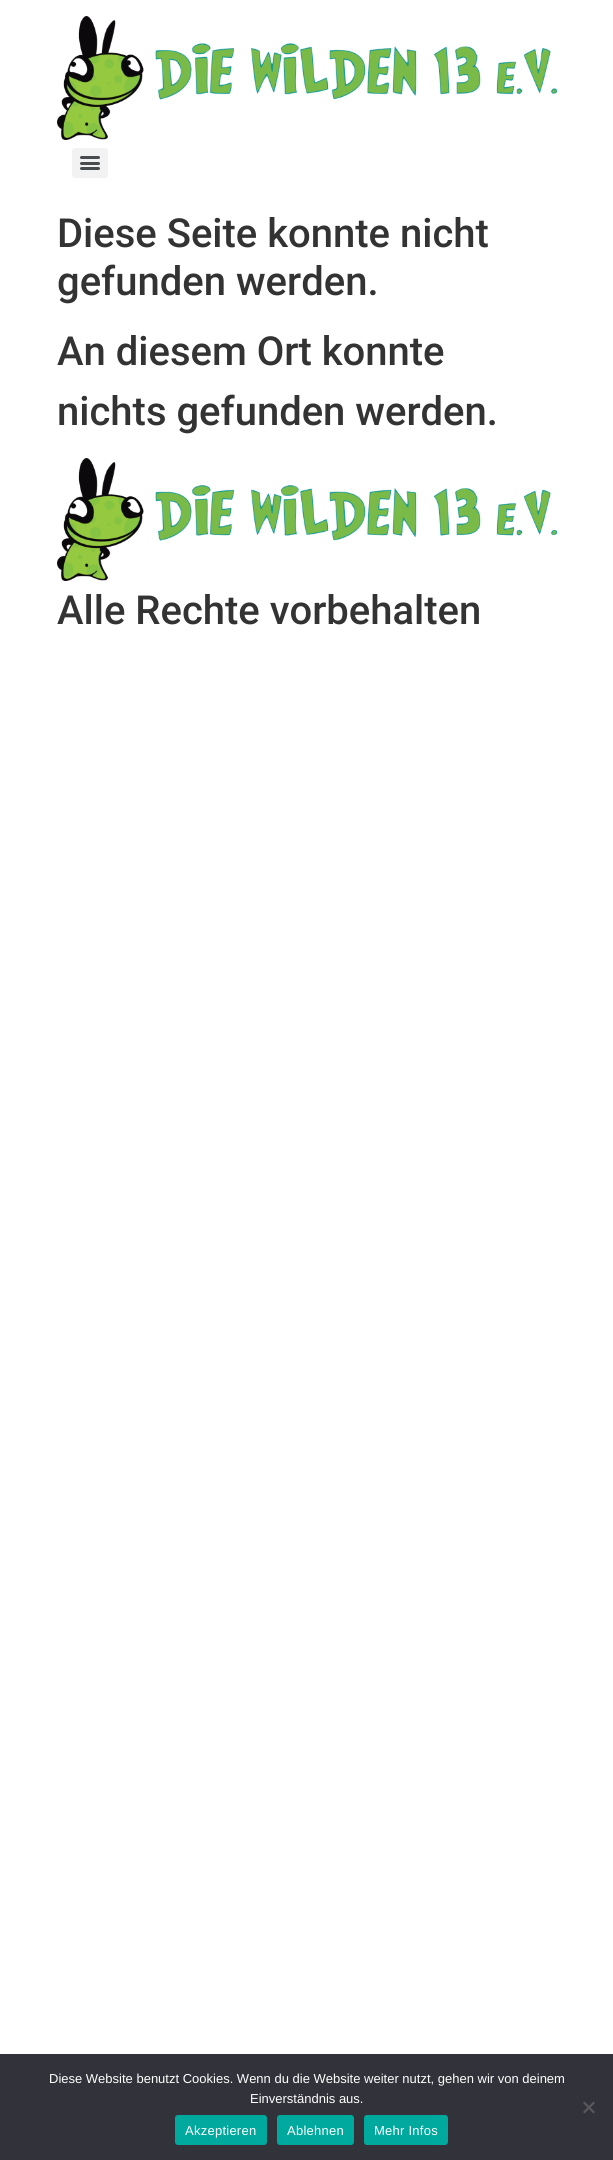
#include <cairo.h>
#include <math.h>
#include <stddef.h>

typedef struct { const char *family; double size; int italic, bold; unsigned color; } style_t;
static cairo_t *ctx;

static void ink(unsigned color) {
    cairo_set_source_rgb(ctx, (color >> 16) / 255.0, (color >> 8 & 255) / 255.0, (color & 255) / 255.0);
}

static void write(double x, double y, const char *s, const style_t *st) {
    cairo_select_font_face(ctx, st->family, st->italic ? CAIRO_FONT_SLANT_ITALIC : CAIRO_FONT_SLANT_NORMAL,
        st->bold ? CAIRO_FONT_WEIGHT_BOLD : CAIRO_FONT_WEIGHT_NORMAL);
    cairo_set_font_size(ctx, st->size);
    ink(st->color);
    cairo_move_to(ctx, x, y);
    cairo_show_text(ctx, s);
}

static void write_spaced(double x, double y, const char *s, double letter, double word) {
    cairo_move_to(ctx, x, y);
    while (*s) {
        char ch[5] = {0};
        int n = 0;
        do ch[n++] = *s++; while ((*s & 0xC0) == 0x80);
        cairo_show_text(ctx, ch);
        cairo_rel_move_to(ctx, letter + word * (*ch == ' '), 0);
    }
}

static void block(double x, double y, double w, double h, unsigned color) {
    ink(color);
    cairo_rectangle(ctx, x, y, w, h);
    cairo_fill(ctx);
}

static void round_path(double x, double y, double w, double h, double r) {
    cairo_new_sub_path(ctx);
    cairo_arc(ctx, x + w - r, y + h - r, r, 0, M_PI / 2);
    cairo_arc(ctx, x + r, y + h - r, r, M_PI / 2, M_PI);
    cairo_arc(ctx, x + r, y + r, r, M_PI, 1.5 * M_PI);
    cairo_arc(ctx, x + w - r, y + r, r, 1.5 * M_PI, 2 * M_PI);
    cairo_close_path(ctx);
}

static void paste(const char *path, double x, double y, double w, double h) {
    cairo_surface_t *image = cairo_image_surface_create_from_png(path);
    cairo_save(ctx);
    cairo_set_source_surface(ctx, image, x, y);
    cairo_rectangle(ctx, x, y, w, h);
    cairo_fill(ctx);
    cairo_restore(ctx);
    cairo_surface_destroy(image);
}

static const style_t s1 = {"Roboto Medium", 40, 0, 0, 0x333333};
static const style_t s2 = {"Liberation Sans", 13, 0, 0, 0xffffff};

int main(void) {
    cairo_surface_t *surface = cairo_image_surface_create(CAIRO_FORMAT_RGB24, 613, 2160);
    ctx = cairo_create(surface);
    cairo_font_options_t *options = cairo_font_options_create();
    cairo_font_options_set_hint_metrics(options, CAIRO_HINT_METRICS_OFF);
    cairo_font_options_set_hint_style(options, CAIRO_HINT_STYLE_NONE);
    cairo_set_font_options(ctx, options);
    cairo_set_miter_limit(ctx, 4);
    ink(0xffffff);
    cairo_paint(ctx);
    paste("pic1.png", 57, 16, 500, 124);
    ink(0xf2f2f2);
    round_path(72, 148, 36, 30, 3);
    cairo_fill(ctx);
    ink(0x494c4f);
    round_path(80, 162, 20, 3, 1.5);
    cairo_fill(ctx);
    round_path(80, 156, 20, 3, 1.5);
    cairo_fill(ctx);
    round_path(80, 167, 20, 3, 1.5);
    cairo_fill(ctx);
    write(57, 247, "Diese Seite konnte nicht", &s1);
    write(57, 295, "gefunden werden.", &s1);
    write(57, 365, "An diesem Ort konnte", &s1);
    write(57, 425, "nichts gefunden werden.", &s1);
    paste("pic2.png", 57, 458, 500, 123);
    write(57, 624, "Alle Rechte vorbehalten", &s1);
    block(0, 2054, 613, 106, 0x32323a);
    write(49, 2083, "Diese Website benutzt Cookies. Wenn du die Website weiter nutzt, gehen wir von deinem", &s2);
    write(250, 2103, "Einverständnis aus.", &s2);
    ink(0x59595d);
    cairo_new_path(ctx);
    cairo_move_to(ctx, 593.5, 2101.5);
    cairo_line_to(ctx, 595, 2103);
    cairo_line_to(ctx, 584.5, 2113.5);
    cairo_line_to(ctx, 583, 2112);
    cairo_close_path(ctx);
    cairo_fill(ctx);
    cairo_new_path(ctx);
    cairo_move_to(ctx, 583, 2103);
    cairo_line_to(ctx, 584.5, 2101.5);
    cairo_line_to(ctx, 595, 2112);
    cairo_line_to(ctx, 593.5, 2113.5);
    cairo_close_path(ctx);
    cairo_fill(ctx);
    ink(0x00a99d);
    round_path(175, 2115, 92, 30, 3);
    cairo_fill(ctx);
    ink(0xffffff);
    write_spaced(185, 2135, "Akzeptieren", 0.25, 0);
    ink(0x00a99d);
    round_path(277, 2115, 77, 30, 3);
    cairo_fill(ctx);
    ink(0xffffff);
    write_spaced(287, 2135, "Ablehnen", 0.25, 0);
    ink(0x00a99d);
    round_path(364, 2115, 84, 30, 3);
    cairo_fill(ctx);
    ink(0xffffff);
    write_spaced(374, 2135, "Mehr Infos", 0.25, 0);
    cairo_surface_write_to_png(surface, "screenshot.png");
    cairo_font_options_destroy(options);
    cairo_destroy(ctx);
    cairo_surface_destroy(surface);
    return 0;
}
